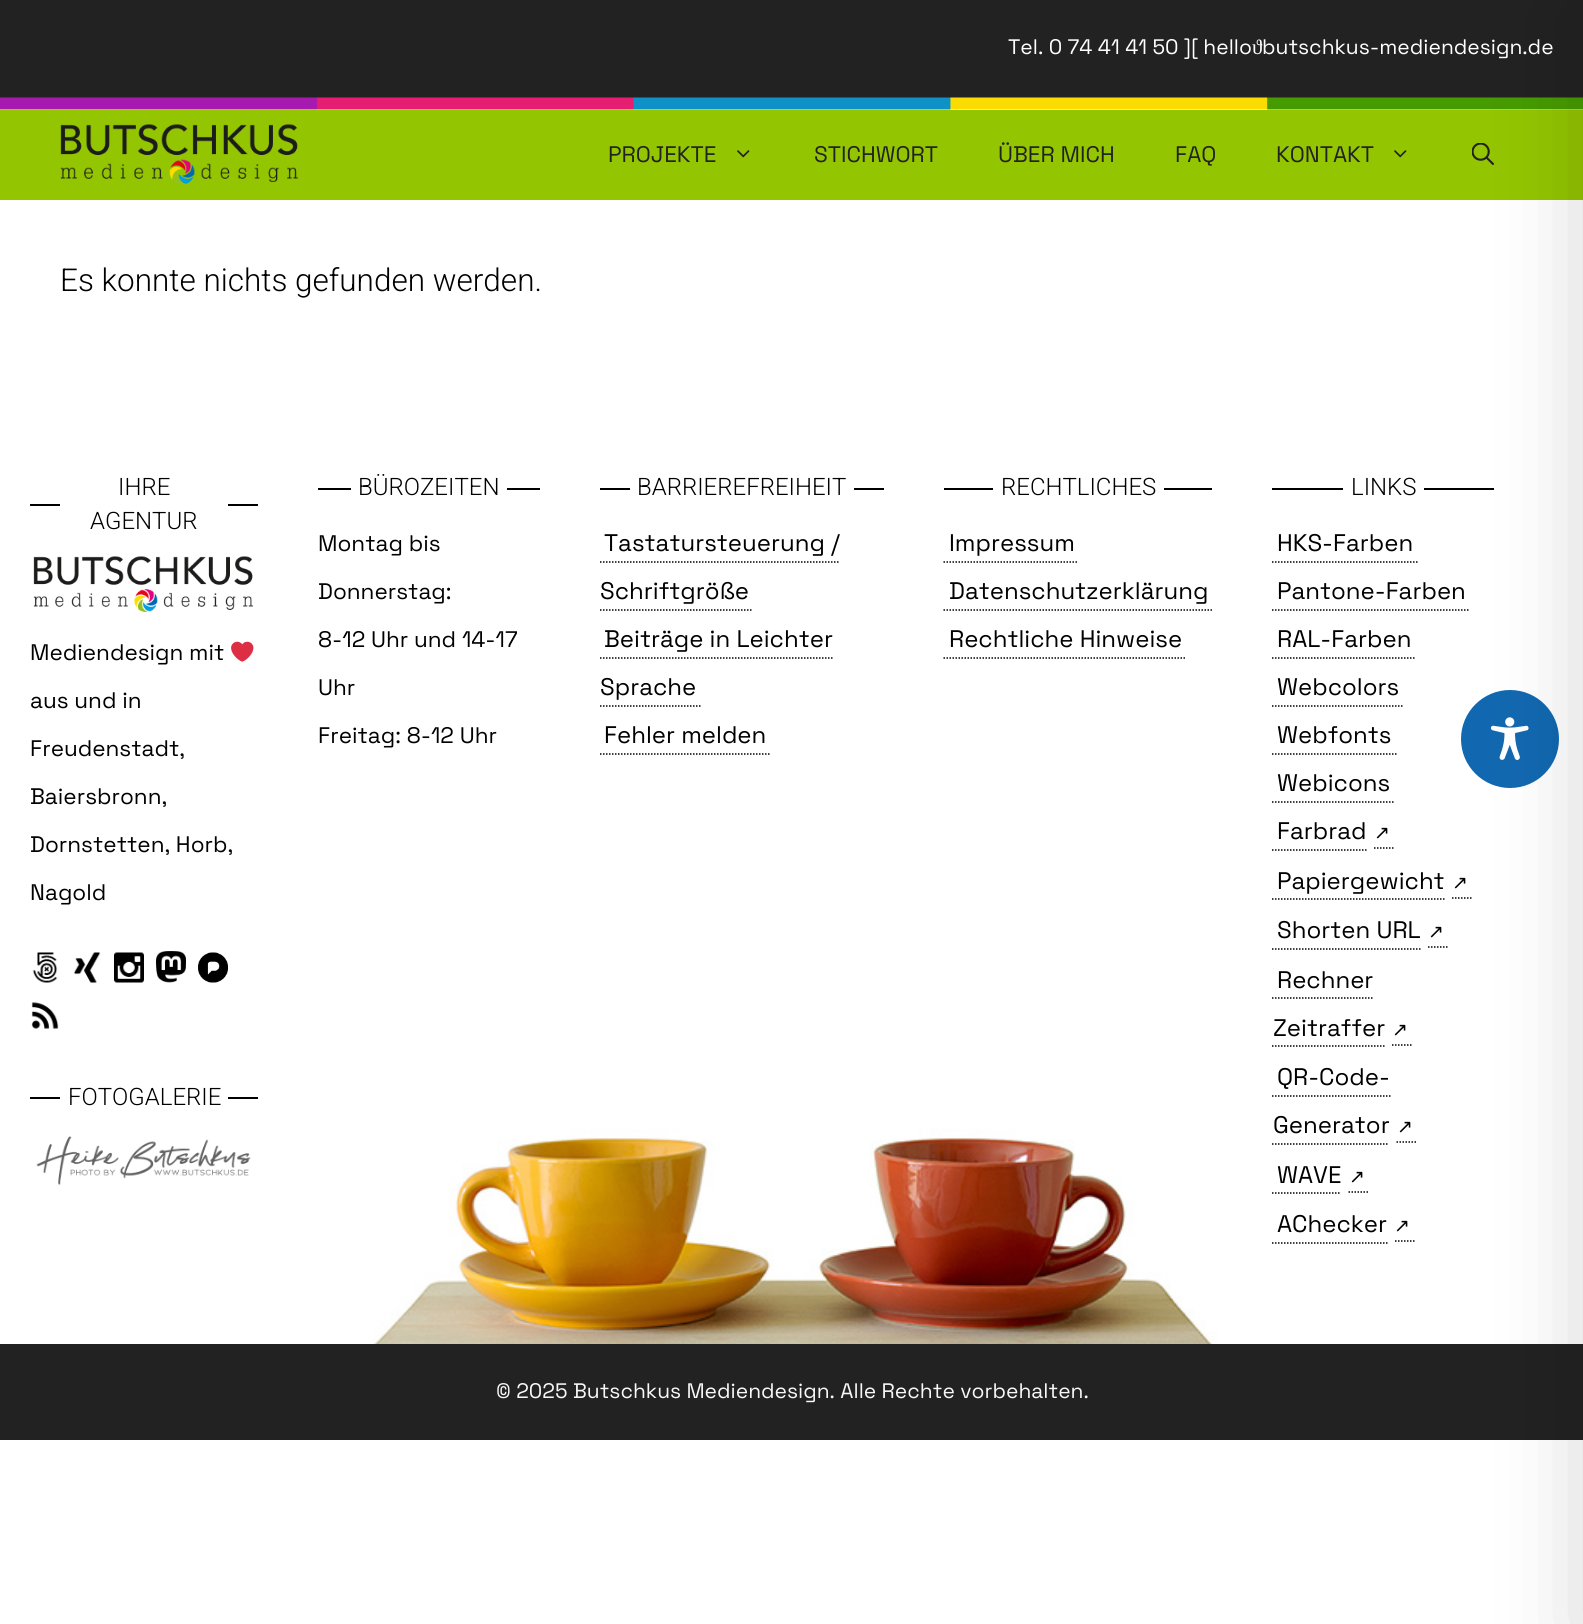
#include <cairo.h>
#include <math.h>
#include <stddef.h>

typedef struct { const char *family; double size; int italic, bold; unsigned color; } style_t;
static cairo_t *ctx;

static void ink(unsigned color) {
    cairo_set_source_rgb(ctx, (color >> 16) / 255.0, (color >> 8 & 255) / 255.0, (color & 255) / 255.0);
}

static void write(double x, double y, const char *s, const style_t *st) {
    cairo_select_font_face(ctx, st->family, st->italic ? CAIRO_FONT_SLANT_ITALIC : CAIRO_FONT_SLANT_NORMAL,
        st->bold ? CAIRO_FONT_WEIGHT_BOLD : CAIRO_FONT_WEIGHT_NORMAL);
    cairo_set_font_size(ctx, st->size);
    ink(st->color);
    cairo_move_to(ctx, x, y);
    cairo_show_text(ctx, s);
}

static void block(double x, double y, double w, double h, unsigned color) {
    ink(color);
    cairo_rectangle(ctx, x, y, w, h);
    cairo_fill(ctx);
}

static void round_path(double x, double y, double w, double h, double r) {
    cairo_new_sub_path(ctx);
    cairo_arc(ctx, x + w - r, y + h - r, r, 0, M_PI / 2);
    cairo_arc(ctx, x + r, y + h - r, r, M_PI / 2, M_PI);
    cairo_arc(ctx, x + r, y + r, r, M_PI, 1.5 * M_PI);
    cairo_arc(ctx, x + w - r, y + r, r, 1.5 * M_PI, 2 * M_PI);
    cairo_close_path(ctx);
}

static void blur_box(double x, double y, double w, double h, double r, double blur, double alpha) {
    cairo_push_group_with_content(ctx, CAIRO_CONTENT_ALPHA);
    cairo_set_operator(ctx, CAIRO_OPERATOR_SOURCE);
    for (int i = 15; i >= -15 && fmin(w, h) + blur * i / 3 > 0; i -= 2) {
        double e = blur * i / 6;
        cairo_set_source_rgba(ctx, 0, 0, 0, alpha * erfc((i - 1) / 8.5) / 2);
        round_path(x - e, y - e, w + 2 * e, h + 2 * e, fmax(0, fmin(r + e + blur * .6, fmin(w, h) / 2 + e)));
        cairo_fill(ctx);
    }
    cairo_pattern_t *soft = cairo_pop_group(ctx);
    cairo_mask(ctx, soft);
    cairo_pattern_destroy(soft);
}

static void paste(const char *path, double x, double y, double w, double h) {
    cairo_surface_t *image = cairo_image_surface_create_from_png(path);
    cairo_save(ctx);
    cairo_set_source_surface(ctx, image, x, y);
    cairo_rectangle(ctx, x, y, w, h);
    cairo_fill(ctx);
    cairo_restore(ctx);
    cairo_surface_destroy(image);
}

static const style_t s1 = {"Space Grotesk Light", 21, 0, 0, 0xffffff};
static const style_t s2 = {"Liberation Serif", 21, 0, 0, 0xffffff};
static const style_t s3 = {"Space Grotesk Light", 22.5, 0, 0, 0x222222};
static const style_t s4 = {"Heebo Light", 31.5, 0, 0, 0x000000};
static const style_t s5 = {"Heebo Light", 24, 0, 0, 0x000000};
static const style_t s6 = {"Space Grotesk Light", 22.5, 0, 0, 0x000000};
static const style_t s7 = {"Space Grotesk Light", 24, 0, 0, 0x000000};
static const style_t s8 = {"DejaVu Sans", 19, 0, 0, 0x000000};
static const style_t s9 = {"Space Grotesk Light", 21, 0, 0, 0xf7f8f9};

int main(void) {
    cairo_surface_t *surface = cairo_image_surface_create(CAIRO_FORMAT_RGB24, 1583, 1624);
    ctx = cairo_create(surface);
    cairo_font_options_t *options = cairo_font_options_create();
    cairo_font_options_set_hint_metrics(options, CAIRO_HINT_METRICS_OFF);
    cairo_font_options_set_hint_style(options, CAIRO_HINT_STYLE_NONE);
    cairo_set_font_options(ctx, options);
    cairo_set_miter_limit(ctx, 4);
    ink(0xffffff);
    cairo_paint(ctx);
    block(0, 0, 1583, 98, 0x222222);
    paste("pic1.png", 0, 97, 1583, 13);
    block(0, 110, 1583, 90, 0x93c501);
    paste("pic4.png", 1472, 143, 22, 22);
    block(1424, 488, 70, 2, 0x000000);
    cairo_new_path(ctx);
    cairo_move_to(ctx, 1272, 610);
    cairo_line_to(ctx, 1470, 610);
    cairo_set_line_width(ctx, 1.5);
    cairo_set_dash(ctx, (double[]){1.5, 1.5}, 2, 0);
    cairo_stroke(ctx);
    cairo_new_path(ctx);
    cairo_move_to(ctx, 1452, 898);
    cairo_line_to(ctx, 1473, 898);
    cairo_stroke(ctx);
    block(0, 1344, 1583, 96, 0x222222);
    ink(0x1268b0);
    cairo_arc(ctx, 1510, 739, 49, 0, 2 * M_PI);
    cairo_fill(ctx);
    paste("pic15.png", 1490, 717, 39, 43);
    ink(0x000000);
    blur_box(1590, 15, 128, 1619, 0, 45, 0.2);
    write(1008, 54, "Tel. 0 74 41 41 50 ][ hello", &s1);
    write(1252, 54, "ϑ", &s2);
    write(1262, 54, "butschkus-mediendesign.de", &s1);
    paste("pic2.png", 60, 124, 238, 61);
    write(608, 162, "PROJEKTE", &s3);
    paste("pic3.png", 737, 150, 13, 8);
    write(814, 162, "STICHWORT", &s3);
    write(998, 162, "ÜBER MICH", &s3);
    write(1175, 162, "FAQ", &s3);
    write(1276, 162, "KONTAKT", &s3);
    paste("pic3.png", 1394, 150, 13, 8);
    write(60, 291, "Es konnte nichts gefunden werden.", &s4);
    paste("pic5.png", 373, 1128, 845, 216);
    write(118, 495, "IHRE", &s5);
    block(30, 504, 30, 2, 0x000000);
    block(228, 504, 30, 2, 0x000000);
    write(90, 529, "AGENTUR", &s5);
    paste("pic6.png", 33, 556, 220, 56);
    write(30, 660, "Mediendesign mit", &s6);
    paste("pic7.png", 231, 641, 23, 21);
    write(30, 708, "aus und in", &s6);
    write(30, 756, "Freudenstadt,", &s6);
    write(30, 804, "Baiersbronn,", &s6);
    write(30, 852, "Dornstetten, Horb,", &s6);
    write(30, 900, "Nagold", &s6);
    paste("pic8.png", 32, 952, 26, 31);
    paste("pic9.png", 74, 952, 27, 31);
    paste("pic10.png", 114, 952, 30, 31);
    paste("pic11.png", 156, 951, 30, 32);
    paste("pic12.png", 198, 952, 30, 31);
    paste("pic13.png", 31, 1002, 28, 27);
    block(30, 1097, 30, 2, 0x000000);
    write(68, 1105, "FOTOGALERIE", &s5);
    block(228, 1097, 30, 2, 0x000000);
    paste("pic14.png", 36, 1136, 215, 49);
    block(318, 488, 33, 2, 0x000000);
    write(358, 495, "BÜROZEITEN", &s5);
    block(507, 488, 33, 2, 0x000000);
    write(318, 551, "Montag bis", &s6);
    write(318, 599, "Donnerstag:", &s6);
    write(318, 647, "8-12 Uhr und 14-17", &s6);
    write(318, 695, "Uhr", &s6);
    write(318, 743, "Freitag: 8-12 Uhr", &s6);
    block(600, 488, 30, 2, 0x000000);
    write(637, 495, "BARRIEREFREIHEIT", &s5);
    block(854, 488, 30, 2, 0x000000);
    write(604, 551, "Tastatursteuerung /", &s7);
    cairo_new_path(ctx);
    cairo_move_to(ctx, 600, 562);
    cairo_line_to(ctx, 840, 562);
    cairo_stroke(ctx);
    write(600, 599, "Schriftgröße", &s7);
    cairo_new_path(ctx);
    cairo_move_to(ctx, 600, 610);
    cairo_line_to(ctx, 753, 610);
    cairo_stroke(ctx);
    write(604, 647, "Beiträge in Leichter", &s7);
    cairo_new_path(ctx);
    cairo_move_to(ctx, 600, 658);
    cairo_line_to(ctx, 834, 658);
    cairo_stroke(ctx);
    write(600, 695, "Sprache", &s7);
    cairo_new_path(ctx);
    cairo_move_to(ctx, 600, 706);
    cairo_line_to(ctx, 700.5, 706);
    cairo_stroke(ctx);
    write(604, 743, "Fehler melden", &s7);
    cairo_new_path(ctx);
    cairo_move_to(ctx, 600, 754);
    cairo_line_to(ctx, 771, 754);
    cairo_stroke(ctx);
    block(944, 488, 49, 2, 0x000000);
    write(1001, 495, "RECHTLICHES", &s5);
    block(1164, 488, 48, 2, 0x000000);
    write(949, 551, "Impressum", &s7);
    cairo_new_path(ctx);
    cairo_move_to(ctx, 943.5, 562);
    cairo_line_to(ctx, 1078.5, 562);
    cairo_stroke(ctx);
    write(949, 599, "Datenschutzerklärung", &s7);
    cairo_new_path(ctx);
    cairo_move_to(ctx, 943.5, 610);
    cairo_line_to(ctx, 1212, 610);
    cairo_stroke(ctx);
    write(949, 647, "Rechtliche Hinweise", &s7);
    cairo_new_path(ctx);
    cairo_move_to(ctx, 943.5, 658);
    cairo_line_to(ctx, 1186.5, 658);
    cairo_stroke(ctx);
    block(1272, 488, 71, 2, 0x000000);
    write(1351, 495, "LINKS", &s5);
    write(1277, 551, "HKS-Farben", &s7);
    cairo_new_path(ctx);
    cairo_move_to(ctx, 1272, 562);
    cairo_line_to(ctx, 1417.5, 562);
    cairo_stroke(ctx);
    write(1277, 599, "Pantone-Farben", &s7);
    write(1277, 647, "RAL-Farben", &s7);
    cairo_new_path(ctx);
    cairo_move_to(ctx, 1272, 658);
    cairo_line_to(ctx, 1416, 658);
    cairo_stroke(ctx);
    write(1277, 695, "Webcolors", &s7);
    cairo_new_path(ctx);
    cairo_move_to(ctx, 1272, 706);
    cairo_line_to(ctx, 1404, 706);
    cairo_stroke(ctx);
    write(1277, 743, "Webfonts", &s7);
    cairo_new_path(ctx);
    cairo_move_to(ctx, 1272, 754);
    cairo_line_to(ctx, 1396.5, 754);
    cairo_stroke(ctx);
    write(1277, 791, "Webicons", &s7);
    cairo_new_path(ctx);
    cairo_move_to(ctx, 1272, 802);
    cairo_line_to(ctx, 1395, 802);
    cairo_stroke(ctx);
    write(1277, 839, "Farbrad", &s7);
    cairo_new_path(ctx);
    cairo_move_to(ctx, 1272, 850);
    cairo_line_to(ctx, 1366.5, 850);
    cairo_stroke(ctx);
    write(1374, 839, "↗", &s8);
    cairo_new_path(ctx);
    cairo_move_to(ctx, 1374, 848);
    cairo_line_to(ctx, 1395, 848);
    cairo_stroke(ctx);
    write(1277, 889, "Papiergewicht", &s7);
    cairo_new_path(ctx);
    cairo_move_to(ctx, 1272, 899);
    cairo_line_to(ctx, 1444.5, 899);
    cairo_stroke(ctx);
    write(1452, 889, "↗", &s8);
    write(1277, 938, "Shorten URL", &s7);
    cairo_new_path(ctx);
    cairo_move_to(ctx, 1272, 949);
    cairo_line_to(ctx, 1420.5, 949);
    cairo_stroke(ctx);
    write(1428, 938, "↗", &s8);
    cairo_new_path(ctx);
    cairo_move_to(ctx, 1428, 947);
    cairo_line_to(ctx, 1449, 947);
    cairo_stroke(ctx);
    write(1277, 988, "Rechner", &s7);
    cairo_new_path(ctx);
    cairo_move_to(ctx, 1272, 998);
    cairo_line_to(ctx, 1374, 998);
    cairo_stroke(ctx);
    write(1273, 1036, "Zeitraffer", &s7);
    cairo_new_path(ctx);
    cairo_move_to(ctx, 1272, 1046);
    cairo_line_to(ctx, 1384.5, 1046);
    cairo_stroke(ctx);
    write(1392, 1036, "↗", &s8);
    cairo_new_path(ctx);
    cairo_move_to(ctx, 1392, 1045);
    cairo_line_to(ctx, 1413, 1045);
    cairo_stroke(ctx);
    write(1277, 1085, "QR-Code-", &s7);
    cairo_new_path(ctx);
    cairo_move_to(ctx, 1272, 1096);
    cairo_line_to(ctx, 1390.5, 1096);
    cairo_stroke(ctx);
    write(1273, 1133, "Generator", &s7);
    cairo_new_path(ctx);
    cairo_move_to(ctx, 1272, 1144);
    cairo_line_to(ctx, 1389, 1144);
    cairo_stroke(ctx);
    write(1397, 1133, "↗", &s8);
    cairo_new_path(ctx);
    cairo_move_to(ctx, 1396.5, 1142);
    cairo_line_to(ctx, 1417.5, 1142);
    cairo_stroke(ctx);
    write(1277, 1183, "WAVE", &s7);
    cairo_new_path(ctx);
    cairo_move_to(ctx, 1272, 1193);
    cairo_line_to(ctx, 1341, 1193);
    cairo_stroke(ctx);
    write(1349, 1183, "↗", &s8);
    cairo_new_path(ctx);
    cairo_move_to(ctx, 1348.5, 1192);
    cairo_line_to(ctx, 1369.5, 1192);
    cairo_stroke(ctx);
    write(1277, 1232, "AChecker", &s7);
    cairo_new_path(ctx);
    cairo_move_to(ctx, 1272, 1243);
    cairo_line_to(ctx, 1387.5, 1243);
    cairo_stroke(ctx);
    write(1394, 1232, "↗", &s8);
    cairo_new_path(ctx);
    cairo_move_to(ctx, 1395, 1241);
    cairo_line_to(ctx, 1414.5, 1241);
    cairo_stroke(ctx);
    write(496, 1398, "© 2025 Butschkus Mediendesign. Alle Rechte vorbehalten.", &s9);
    cairo_surface_write_to_png(surface, "screenshot.png");
    cairo_font_options_destroy(options);
    cairo_destroy(ctx);
    cairo_surface_destroy(surface);
    return 0;
}
